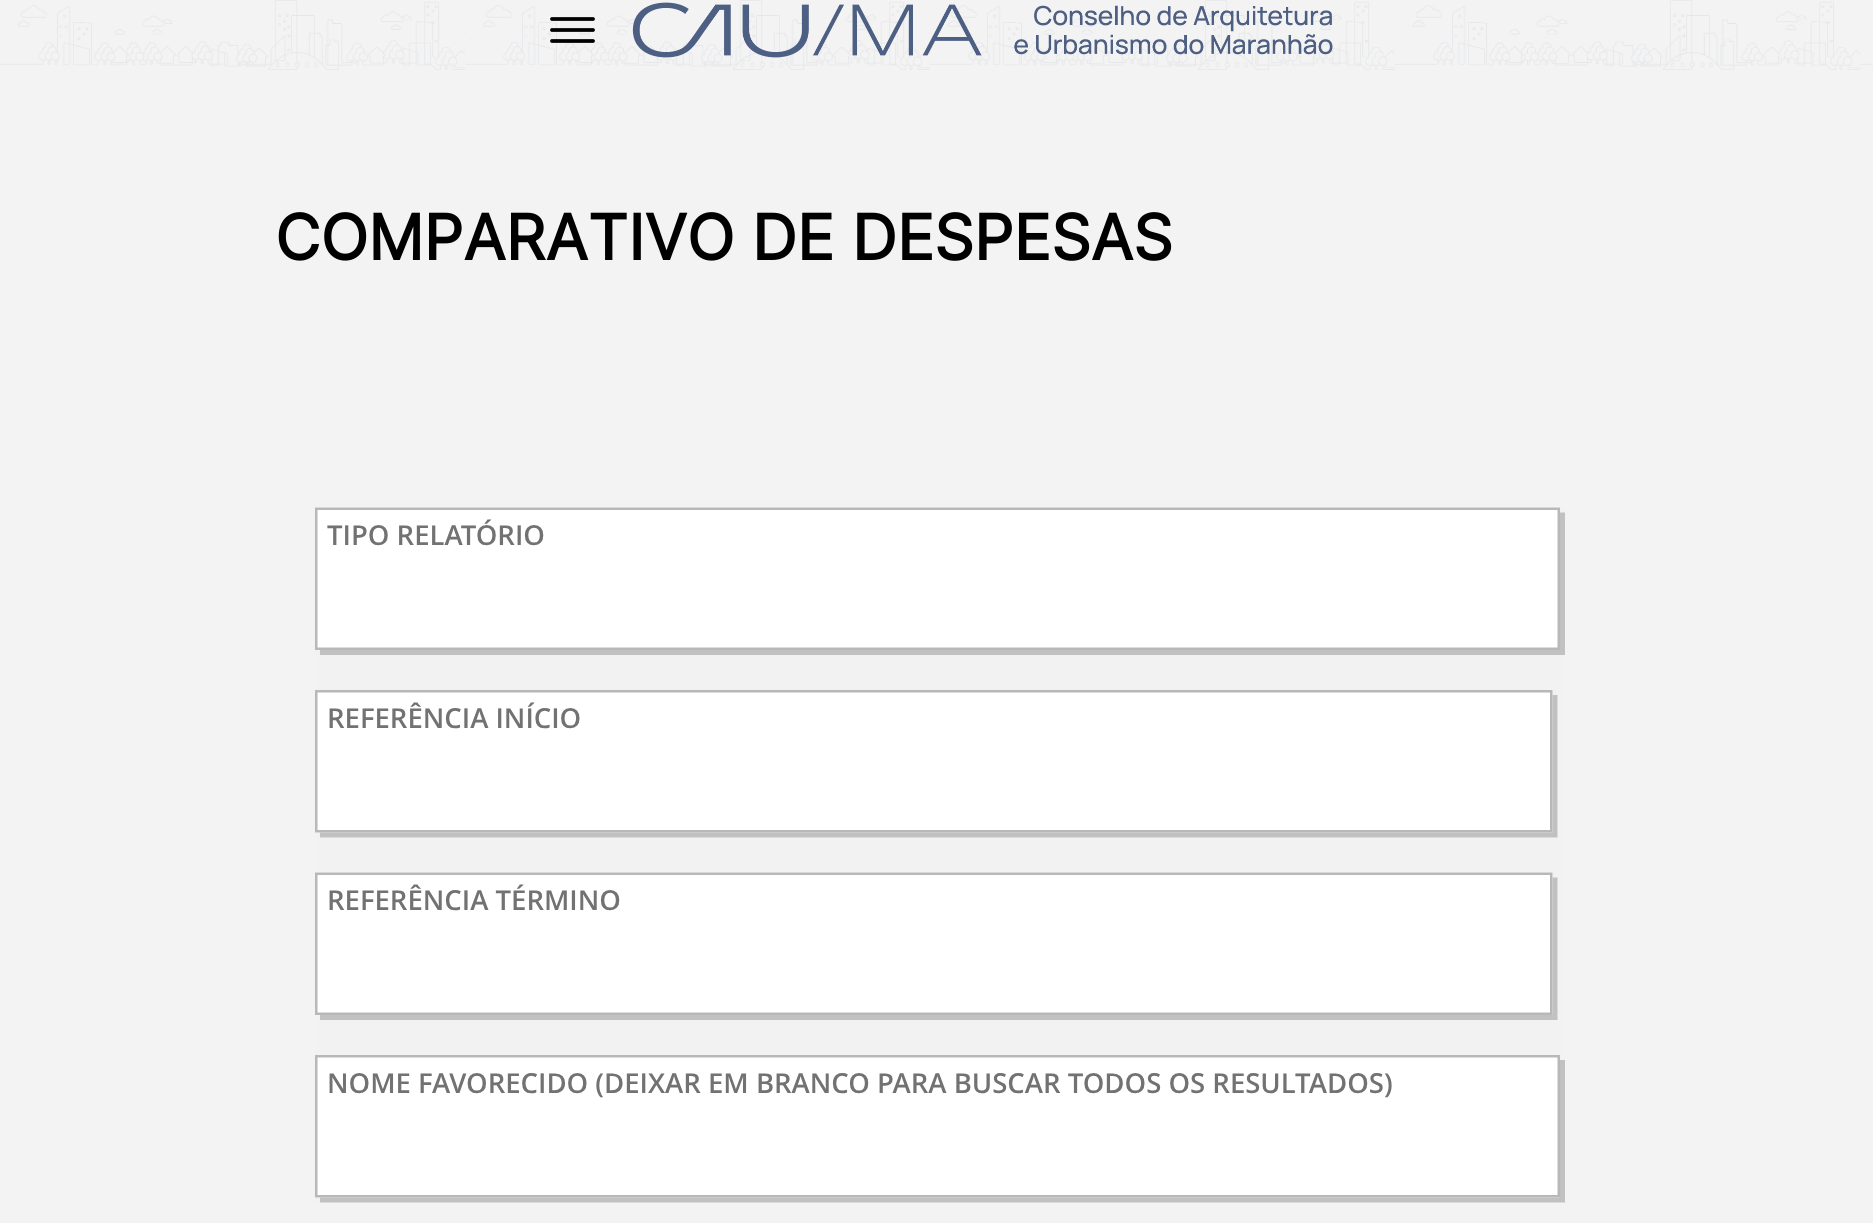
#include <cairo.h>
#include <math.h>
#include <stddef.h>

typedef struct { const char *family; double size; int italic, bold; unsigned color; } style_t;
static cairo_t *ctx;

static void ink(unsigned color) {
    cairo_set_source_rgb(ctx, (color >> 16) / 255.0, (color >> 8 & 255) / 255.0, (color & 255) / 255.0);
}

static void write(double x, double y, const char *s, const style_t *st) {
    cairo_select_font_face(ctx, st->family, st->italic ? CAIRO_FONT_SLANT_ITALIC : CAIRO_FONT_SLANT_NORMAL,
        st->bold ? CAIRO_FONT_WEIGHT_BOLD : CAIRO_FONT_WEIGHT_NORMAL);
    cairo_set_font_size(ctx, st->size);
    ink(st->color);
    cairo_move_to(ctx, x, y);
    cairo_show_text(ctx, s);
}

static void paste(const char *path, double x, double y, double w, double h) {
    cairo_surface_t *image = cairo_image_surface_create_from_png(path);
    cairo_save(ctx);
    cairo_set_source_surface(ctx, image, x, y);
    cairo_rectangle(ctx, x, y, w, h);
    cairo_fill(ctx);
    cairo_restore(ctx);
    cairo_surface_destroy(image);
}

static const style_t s1 = {"Inter", 62.5, 0, 1, 0x000000};

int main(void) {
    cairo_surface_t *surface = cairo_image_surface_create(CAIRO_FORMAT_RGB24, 1873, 1223);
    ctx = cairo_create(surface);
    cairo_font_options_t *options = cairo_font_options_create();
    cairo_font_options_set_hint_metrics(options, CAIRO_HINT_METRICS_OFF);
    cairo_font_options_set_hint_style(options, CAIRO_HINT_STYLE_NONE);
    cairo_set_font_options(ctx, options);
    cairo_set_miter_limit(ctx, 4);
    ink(0xf3f3f3);
    cairo_paint(ctx);
    paste("pic1.png", 0, 0, 1873, 70);
    cairo_new_path(ctx);
    cairo_move_to(ctx, 552, 19);
    cairo_line_to(ctx, 593, 19);
    cairo_move_to(ctx, 552, 30);
    cairo_line_to(ctx, 593, 30);
    cairo_move_to(ctx, 552, 41);
    cairo_line_to(ctx, 593, 41);
    ink(0x000000);
    cairo_set_line_width(ctx, 3.8);
    cairo_set_line_cap(ctx, CAIRO_LINE_CAP_ROUND);
    cairo_stroke(ctx);
    paste("pic2.png", 632, 2, 701, 56);
    write(275, 260, "COMPARATIVO DE DESPESAS", &s1);
    paste("pic3.png", 315, 507, 1250, 696);
    cairo_surface_write_to_png(surface, "screenshot.png");
    cairo_font_options_destroy(options);
    cairo_destroy(ctx);
    cairo_surface_destroy(surface);
    return 0;
}
